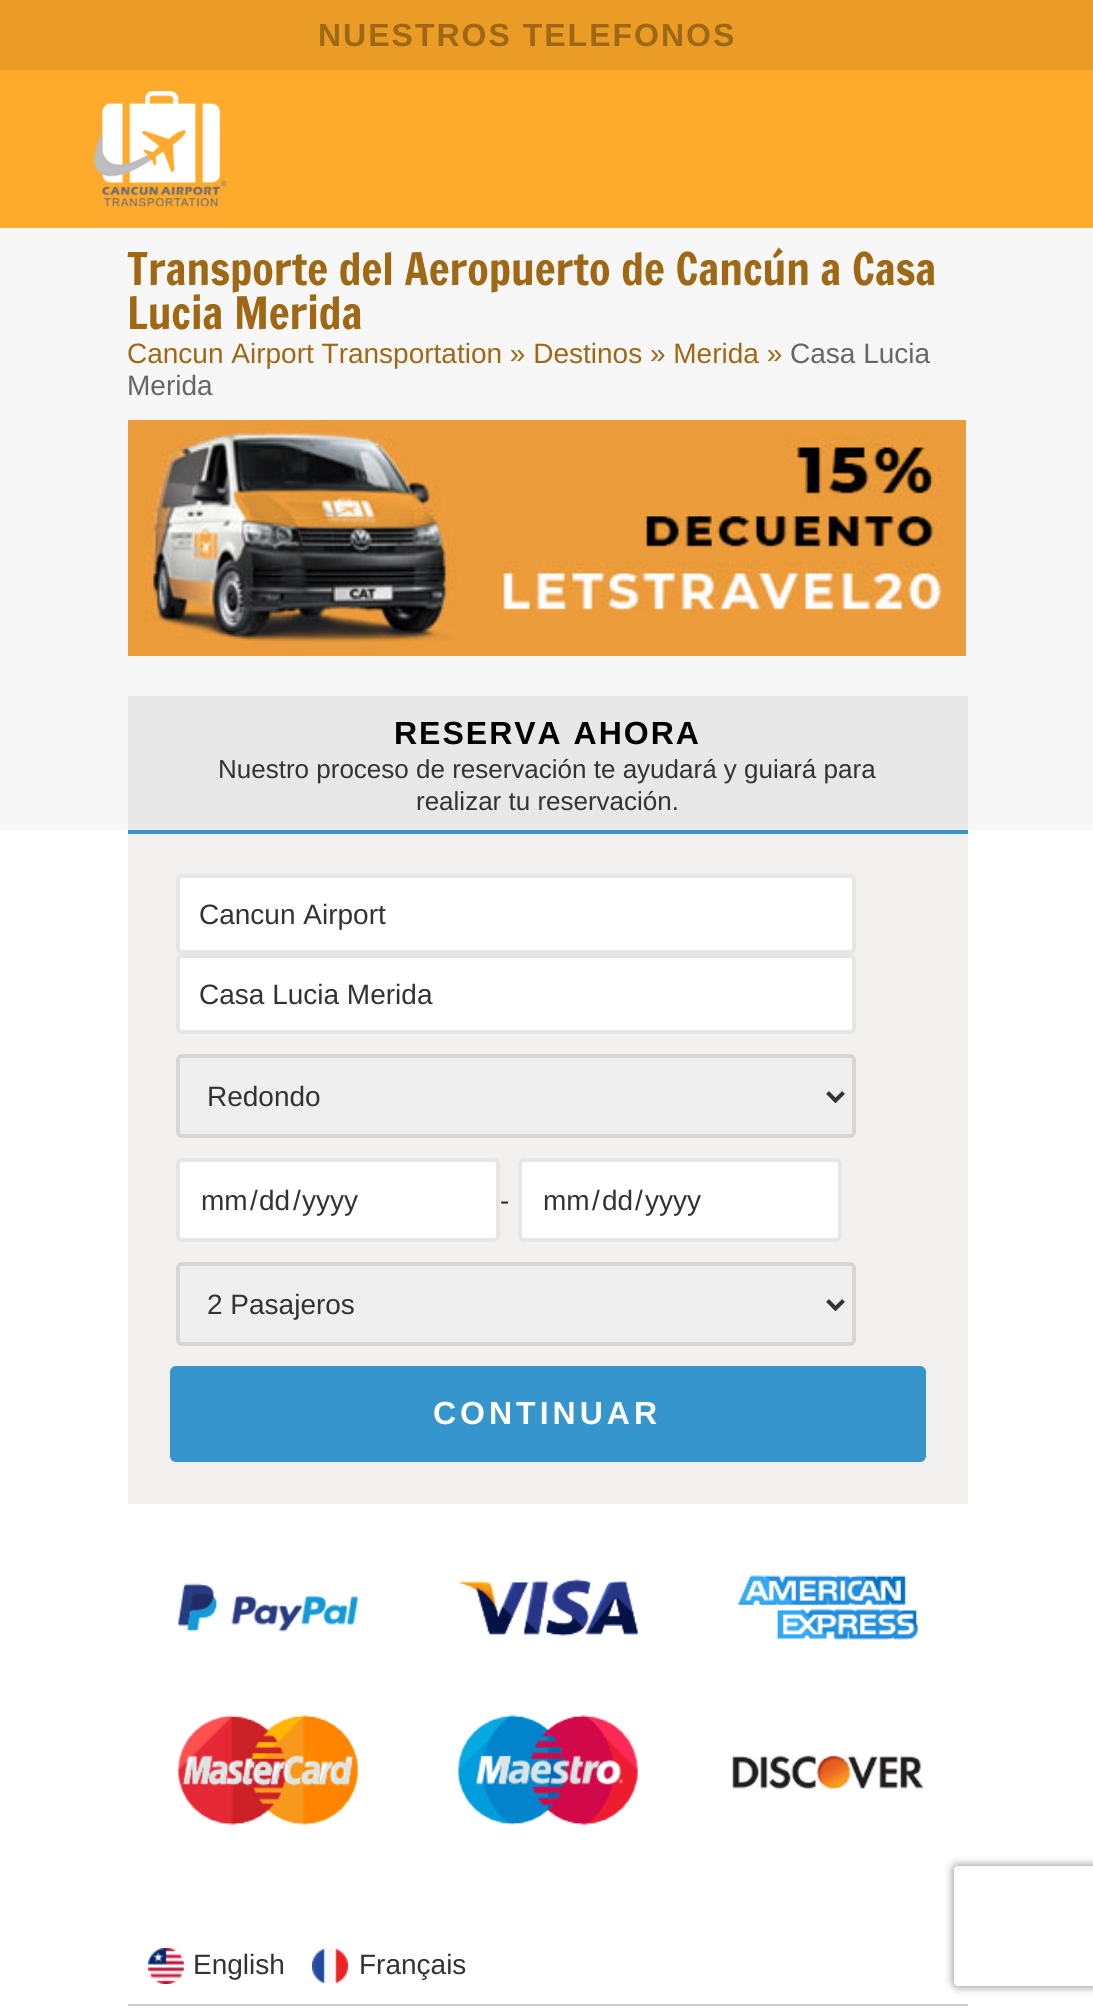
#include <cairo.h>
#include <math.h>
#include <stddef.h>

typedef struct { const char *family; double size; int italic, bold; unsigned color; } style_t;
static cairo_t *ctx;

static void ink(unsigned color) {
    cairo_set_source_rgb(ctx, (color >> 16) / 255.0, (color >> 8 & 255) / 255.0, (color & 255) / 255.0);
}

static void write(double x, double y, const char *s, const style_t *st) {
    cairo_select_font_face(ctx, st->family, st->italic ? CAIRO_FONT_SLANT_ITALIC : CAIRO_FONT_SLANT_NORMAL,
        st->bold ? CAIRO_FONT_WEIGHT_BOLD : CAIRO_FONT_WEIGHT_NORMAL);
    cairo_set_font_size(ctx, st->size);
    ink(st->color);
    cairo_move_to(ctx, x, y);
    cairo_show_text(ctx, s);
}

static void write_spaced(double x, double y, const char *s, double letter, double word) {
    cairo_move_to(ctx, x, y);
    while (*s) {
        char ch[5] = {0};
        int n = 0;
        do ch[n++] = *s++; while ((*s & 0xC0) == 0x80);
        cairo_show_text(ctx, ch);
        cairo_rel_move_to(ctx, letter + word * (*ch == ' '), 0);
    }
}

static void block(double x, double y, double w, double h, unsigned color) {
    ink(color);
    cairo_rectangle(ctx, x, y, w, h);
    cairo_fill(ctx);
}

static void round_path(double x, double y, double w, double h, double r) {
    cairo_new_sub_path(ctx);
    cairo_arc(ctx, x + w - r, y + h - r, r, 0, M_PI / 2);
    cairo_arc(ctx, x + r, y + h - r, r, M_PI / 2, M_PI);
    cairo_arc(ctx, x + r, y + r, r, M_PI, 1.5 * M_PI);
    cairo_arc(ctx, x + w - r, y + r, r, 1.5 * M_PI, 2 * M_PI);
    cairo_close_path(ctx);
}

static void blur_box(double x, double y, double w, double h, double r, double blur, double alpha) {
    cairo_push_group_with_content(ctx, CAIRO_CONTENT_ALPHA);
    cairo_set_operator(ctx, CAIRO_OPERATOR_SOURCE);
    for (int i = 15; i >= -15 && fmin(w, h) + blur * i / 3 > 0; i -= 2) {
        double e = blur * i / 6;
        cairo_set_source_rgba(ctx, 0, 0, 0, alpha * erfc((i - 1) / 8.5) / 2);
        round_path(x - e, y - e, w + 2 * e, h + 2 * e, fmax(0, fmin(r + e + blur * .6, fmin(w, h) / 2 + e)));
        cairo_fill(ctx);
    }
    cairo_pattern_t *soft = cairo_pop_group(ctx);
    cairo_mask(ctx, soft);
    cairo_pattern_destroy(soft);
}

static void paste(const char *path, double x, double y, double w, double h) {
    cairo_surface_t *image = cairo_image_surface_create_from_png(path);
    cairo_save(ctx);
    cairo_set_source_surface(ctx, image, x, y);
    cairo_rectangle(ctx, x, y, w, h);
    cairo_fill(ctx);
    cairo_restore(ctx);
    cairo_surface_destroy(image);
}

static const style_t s1 = {"Francois One", 44, 0, 0, 0x9e6815};
static const style_t s2 = {"Liberation Sans", 28, 0, 0, 0x9e6815};
static const style_t s3 = {"Liberation Sans", 28, 0, 0, 0x666666};
static const style_t s4 = {"Liberation Sans", 26, 0, 0, 0x333333};
static const style_t s5 = {"Liberation Sans", 28, 0, 0, 0x333333};

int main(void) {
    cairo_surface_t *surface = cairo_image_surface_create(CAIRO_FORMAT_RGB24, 1093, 2013);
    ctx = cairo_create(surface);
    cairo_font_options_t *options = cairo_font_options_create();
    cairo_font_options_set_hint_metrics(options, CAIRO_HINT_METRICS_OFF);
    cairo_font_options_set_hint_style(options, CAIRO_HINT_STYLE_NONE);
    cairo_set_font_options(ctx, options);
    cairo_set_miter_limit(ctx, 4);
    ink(0xffffff);
    cairo_paint(ctx);
    block(0, 0, 1093, 70, 0xeb9c26);
    cairo_select_font_face(ctx, "Liberation Sans", CAIRO_FONT_SLANT_NORMAL, CAIRO_FONT_WEIGHT_BOLD);
    cairo_set_font_size(ctx, 32);
    ink(0x9e6815);
    write_spaced(318, 46, "NUESTROS TELEFONOS", 2, 0);
    block(0, 70, 1093, 158, 0xfdaa2d);
    paste("pic1.png", 93, 91, 134, 116);
    block(0, 228, 1093, 602, 0xf7f7f7);
    write(127, 285, "Transporte del Aeropuerto de Cancún a Casa", &s1);
    write(127, 329, "Lucia Merida", &s1);
    write(127, 363, "Cancun Airport Transportation » Destinos » Merida »", &s2);
    write(790, 363, "Casa Lucia", &s3);
    write(127, 395, "Merida", &s3);
    paste("pic2.png", 128, 420, 838, 236);
    block(128, 696, 840, 134, 0xe8e8e8);
    cairo_select_font_face(ctx, "Liberation Sans", CAIRO_FONT_SLANT_NORMAL, CAIRO_FONT_WEIGHT_BOLD);
    cairo_set_font_size(ctx, 32);
    ink(0x000000);
    write_spaced(394, 744, "RESERVA AHORA", 2, 0);
    write(218, 778, "Nuestro proceso de reservación te ayudará y guiará para", &s4);
    write(416, 810, "realizar tu reservación.", &s4);
    block(128, 834, 840, 670, 0xf2efef);
    block(128, 830, 840, 4, 0x3695cc);
    ink(0xffffff);
    round_path(176, 874, 680, 80, 6);
    cairo_fill(ctx);
    round_path(178, 876, 676, 76, 4);
    cairo_set_source_rgba(ctx, 0, 0, 0, 0.1);
    cairo_set_line_width(ctx, 4);
    cairo_stroke(ctx);
    write(199, 924, "Cancun Airport", &s5);
    ink(0xffffff);
    round_path(176, 954, 680, 80, 6);
    cairo_fill(ctx);
    round_path(178, 956, 676, 76, 4);
    cairo_set_source_rgba(ctx, 0, 0, 0, 0.1);
    cairo_stroke(ctx);
    write(199, 1004, "Casa Lucia Merida", &s5);
    ink(0xefefef);
    round_path(178, 1056, 676, 80, 4);
    cairo_fill_preserve(ctx);
    ink(0xd7d7d7);
    cairo_stroke(ctx);
    cairo_new_path(ctx);
    cairo_move_to(ctx, 827.5, 1092.5);
    cairo_line_to(ctx, 835.5, 1100.5);
    cairo_line_to(ctx, 843.5, 1092.5);
    ink(0x333333);
    cairo_stroke(ctx);
    write(207, 1106, "Redondo", &s5);
    ink(0xffffff);
    round_path(176, 1158, 324, 84, 6);
    cairo_fill(ctx);
    round_path(178, 1160, 320, 80, 4);
    cairo_set_source_rgba(ctx, 0, 0, 0, 0.1);
    cairo_stroke(ctx);
    write(201, 1210, "mm", &s5);
    write(250, 1210, "/", &s5);
    write(259, 1210, "dd", &s5);
    write(293, 1210, "/", &s5);
    write(302, 1210, "yyyy", &s5);
    write(500, 1210, "-", &s5);
    ink(0xffffff);
    round_path(518, 1158, 324, 84, 6);
    cairo_fill(ctx);
    round_path(520, 1160, 320, 80, 4);
    cairo_set_source_rgba(ctx, 0, 0, 0, 0.1);
    cairo_stroke(ctx);
    write(543, 1210, "mm", &s5);
    write(592, 1210, "/", &s5);
    write(602, 1210, "dd", &s5);
    write(635, 1210, "/", &s5);
    write(645, 1210, "yyyy", &s5);
    ink(0xefefef);
    round_path(178, 1264, 676, 80, 4);
    cairo_fill_preserve(ctx);
    ink(0xd7d7d7);
    cairo_stroke(ctx);
    cairo_new_path(ctx);
    cairo_move_to(ctx, 827.5, 1300.5);
    cairo_line_to(ctx, 835.5, 1308.5);
    cairo_line_to(ctx, 843.5, 1300.5);
    ink(0x333333);
    cairo_stroke(ctx);
    write(207, 1314, "2 Pasajeros", &s5);
    ink(0x3695cc);
    round_path(170, 1366, 756, 96, 6);
    cairo_fill(ctx);
    cairo_select_font_face(ctx, "Liberation Sans", CAIRO_FONT_SLANT_NORMAL, CAIRO_FONT_WEIGHT_BOLD);
    cairo_set_font_size(ctx, 32);
    ink(0xffffff);
    write_spaced(433, 1424, "CONTINUAR", 4, 0);
    paste("pic3.png", 178, 1575, 746, 250);
    block(128, 2004, 840, 2, 0xcecece);
    paste("pic4.png", 148, 1948, 36, 36);
    write(193, 1974, "English", &s5);
    paste("pic5.png", 312, 1948, 36, 36);
    write(359, 1974, "Français", &s5);
    cairo_save(ctx);
    cairo_set_fill_rule(ctx, CAIRO_FILL_RULE_EVEN_ODD);
    cairo_new_path(ctx);
    cairo_move_to(ctx, 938, 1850);
    cairo_line_to(ctx, 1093, 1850);
    cairo_line_to(ctx, 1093, 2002);
    cairo_line_to(ctx, 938, 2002);
    cairo_close_path(ctx);
    cairo_move_to(ctx, 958, 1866);
    cairo_line_to(ctx, 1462, 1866);
    cairo_curve_to(ctx, 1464, 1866, 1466, 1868, 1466, 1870);
    cairo_line_to(ctx, 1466, 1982);
    cairo_curve_to(ctx, 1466, 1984, 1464, 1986, 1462, 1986);
    cairo_line_to(ctx, 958, 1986);
    cairo_curve_to(ctx, 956, 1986, 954, 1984, 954, 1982);
    cairo_line_to(ctx, 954, 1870);
    cairo_curve_to(ctx, 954, 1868, 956, 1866, 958, 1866);
    cairo_close_path(ctx);
    cairo_clip(ctx);
    ink(0x808080);
    blur_box(954, 1866, 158, 120, 4, 5, 1);
    cairo_restore(ctx);
    cairo_surface_write_to_png(surface, "screenshot.png");
    cairo_font_options_destroy(options);
    cairo_destroy(ctx);
    cairo_surface_destroy(surface);
    return 0;
}
